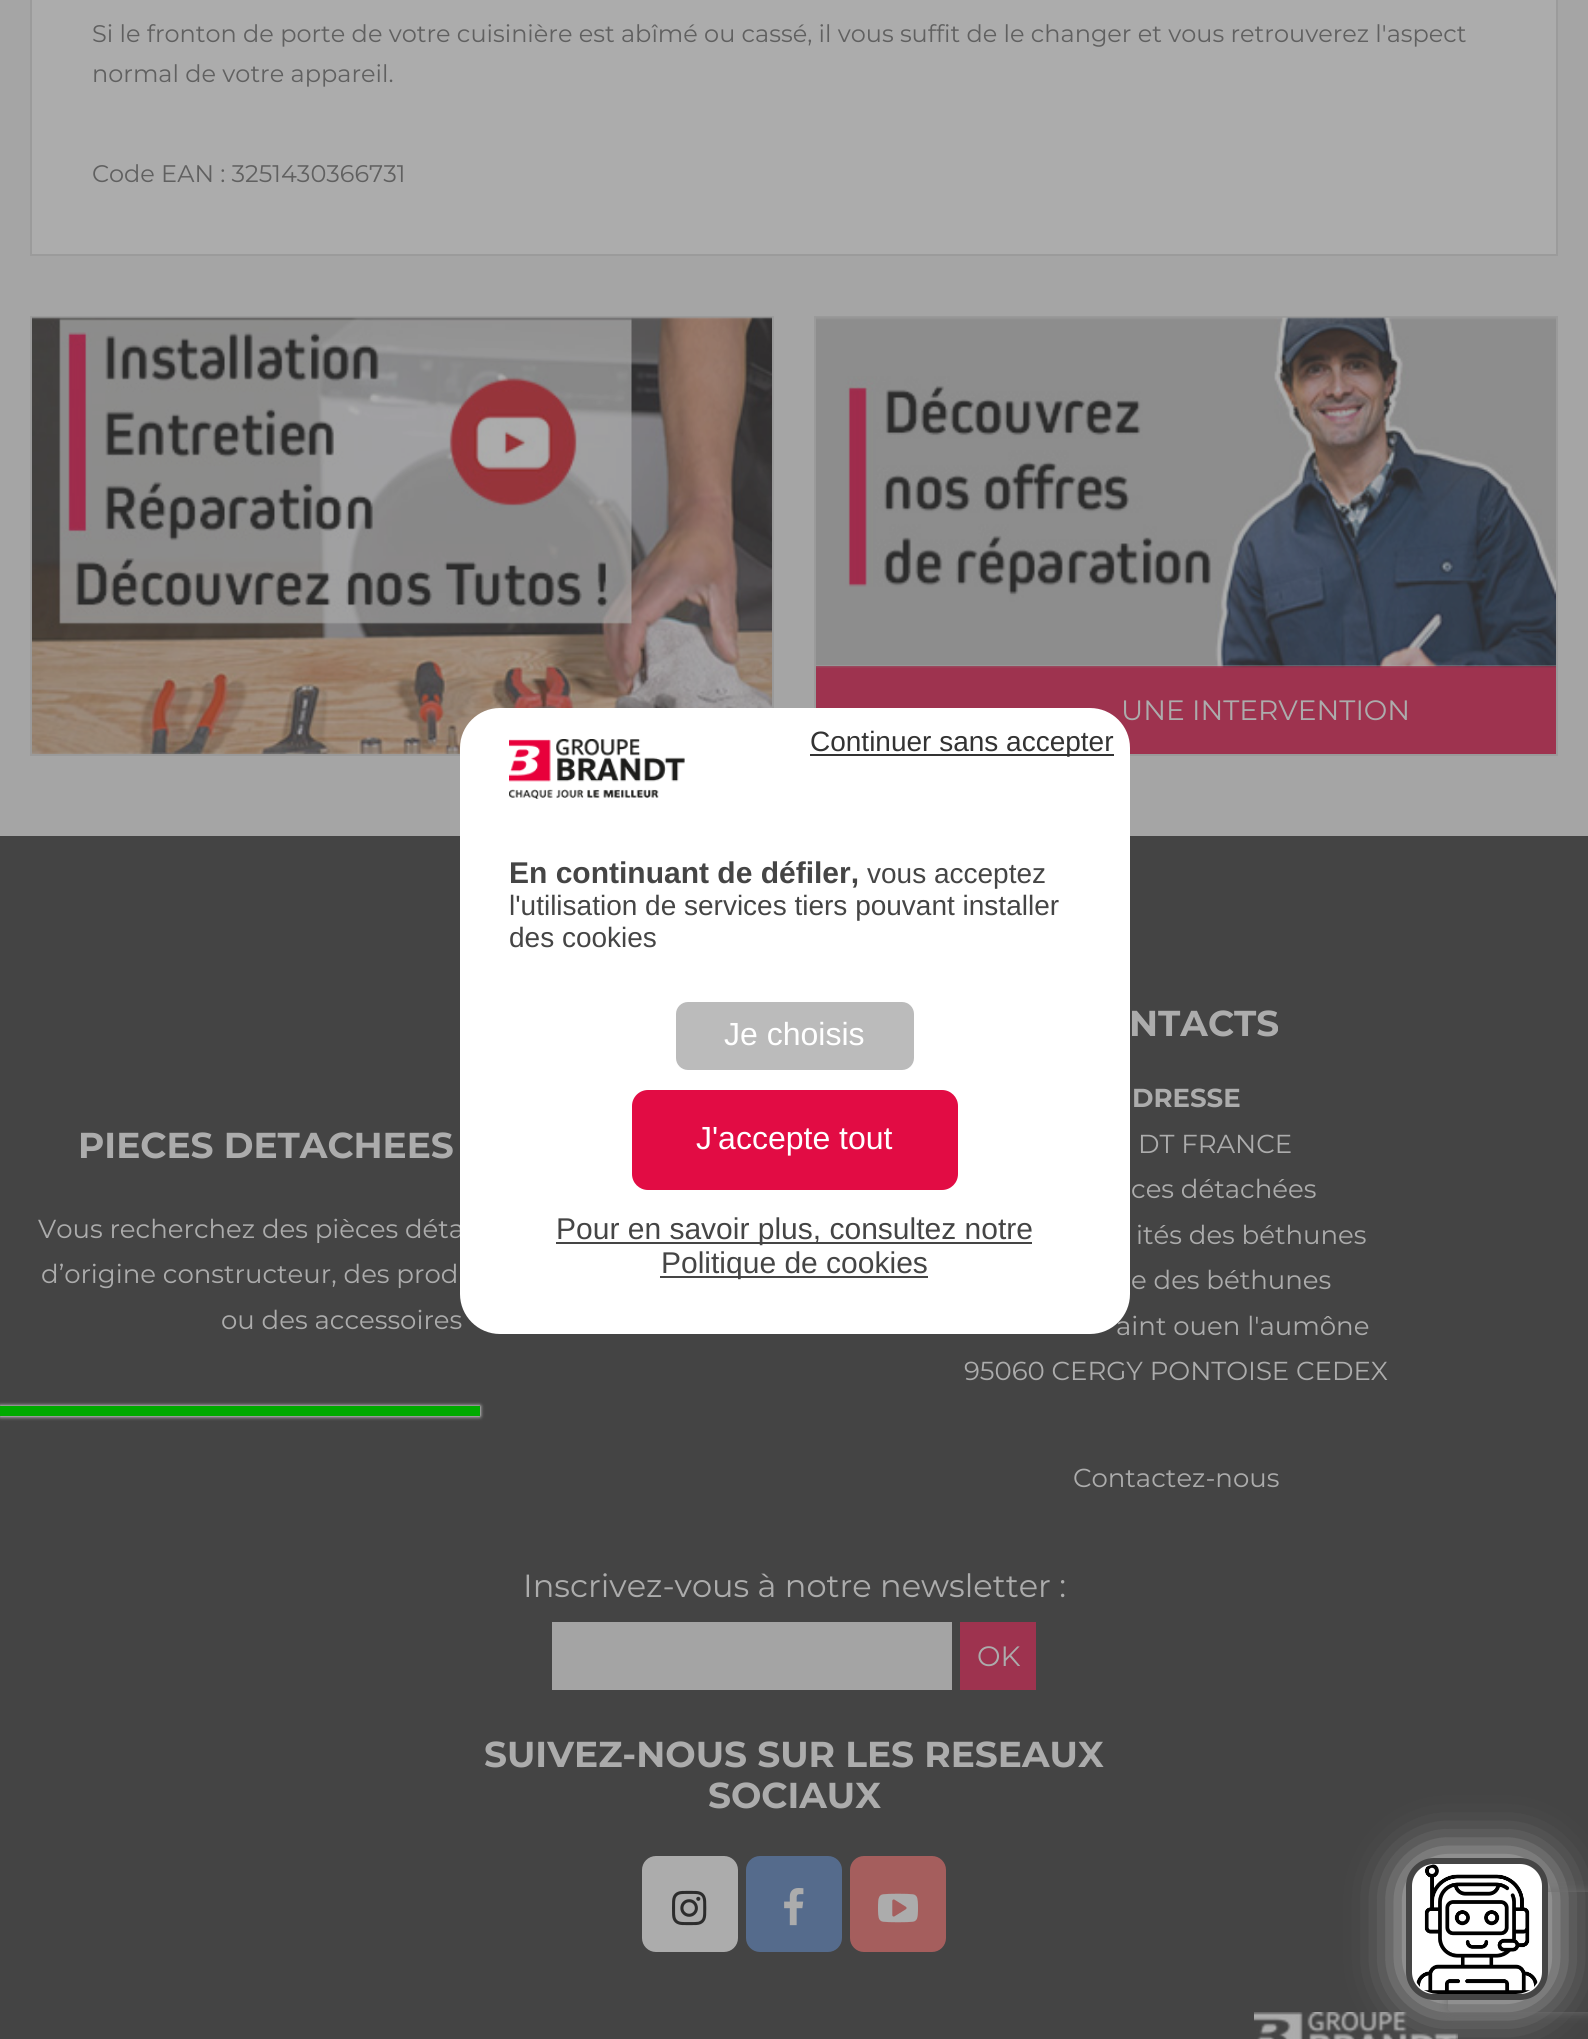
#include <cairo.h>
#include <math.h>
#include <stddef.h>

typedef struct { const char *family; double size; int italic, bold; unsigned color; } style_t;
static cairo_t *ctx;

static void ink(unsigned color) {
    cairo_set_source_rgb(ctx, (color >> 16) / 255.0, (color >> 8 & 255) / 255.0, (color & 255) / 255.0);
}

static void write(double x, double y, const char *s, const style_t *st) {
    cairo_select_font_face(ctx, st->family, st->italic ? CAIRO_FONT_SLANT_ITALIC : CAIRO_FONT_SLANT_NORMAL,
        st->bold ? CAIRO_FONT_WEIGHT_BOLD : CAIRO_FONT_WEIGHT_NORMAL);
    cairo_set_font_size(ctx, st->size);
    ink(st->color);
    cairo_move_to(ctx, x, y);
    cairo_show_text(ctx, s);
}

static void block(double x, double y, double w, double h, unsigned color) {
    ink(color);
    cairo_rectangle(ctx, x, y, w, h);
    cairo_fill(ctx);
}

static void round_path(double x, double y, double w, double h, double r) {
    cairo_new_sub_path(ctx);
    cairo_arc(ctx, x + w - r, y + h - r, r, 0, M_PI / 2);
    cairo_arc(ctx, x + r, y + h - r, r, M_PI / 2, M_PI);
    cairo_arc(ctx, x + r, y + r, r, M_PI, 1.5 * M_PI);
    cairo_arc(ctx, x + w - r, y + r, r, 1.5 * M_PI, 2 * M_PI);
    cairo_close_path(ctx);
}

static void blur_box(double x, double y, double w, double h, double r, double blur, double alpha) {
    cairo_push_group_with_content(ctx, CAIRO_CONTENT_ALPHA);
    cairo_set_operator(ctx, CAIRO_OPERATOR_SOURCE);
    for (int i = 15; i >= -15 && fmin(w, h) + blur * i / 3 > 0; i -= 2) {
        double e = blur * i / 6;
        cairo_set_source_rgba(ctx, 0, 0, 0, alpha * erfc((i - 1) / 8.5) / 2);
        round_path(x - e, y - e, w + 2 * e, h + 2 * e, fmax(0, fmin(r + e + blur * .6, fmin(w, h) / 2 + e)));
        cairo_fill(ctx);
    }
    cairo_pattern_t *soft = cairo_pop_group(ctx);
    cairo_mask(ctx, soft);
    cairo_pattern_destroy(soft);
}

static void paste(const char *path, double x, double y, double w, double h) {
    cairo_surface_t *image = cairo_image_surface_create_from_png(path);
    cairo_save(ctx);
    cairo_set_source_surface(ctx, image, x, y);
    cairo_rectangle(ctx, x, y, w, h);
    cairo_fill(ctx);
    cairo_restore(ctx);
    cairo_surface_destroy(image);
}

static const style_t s1 = {"Montserrat", 24, 0, 0, 0x606060};
static const style_t s2 = {"Montserrat", 28, 0, 0, 0xacacac};
static const style_t s3 = {"Montserrat", 36, 0, 1, 0xacacac};
static const style_t s4 = {"Montserrat", 26, 0, 0, 0xacacac};
static const style_t s5 = {"Montserrat", 26, 0, 1, 0xacacac};
static const style_t s6 = {"Montserrat", 32, 0, 0, 0xacacac};
static const style_t s7 = {"Liberation Sans", 28, 0, 0, 0x333333};
static const style_t s8 = {"Liberation Sans", 30, 0, 1, 0x454545};
static const style_t s9 = {"Liberation Sans", 28, 0, 0, 0x454545};
static const style_t s10 = {"Liberation Sans", 32, 0, 0, 0xffffff};
static const style_t s11 = {"Liberation Sans", 30, 0, 0, 0x454545};

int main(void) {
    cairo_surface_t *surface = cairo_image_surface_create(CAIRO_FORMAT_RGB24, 1588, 2039);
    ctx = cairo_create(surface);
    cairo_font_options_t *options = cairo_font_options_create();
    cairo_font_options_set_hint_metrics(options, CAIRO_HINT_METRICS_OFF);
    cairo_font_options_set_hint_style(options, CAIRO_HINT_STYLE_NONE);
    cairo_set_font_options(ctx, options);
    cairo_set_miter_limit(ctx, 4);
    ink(0xa5a5a5);
    cairo_paint(ctx);
    ink(0xacacac);
    cairo_rectangle(ctx, 31, -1, 1526, 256);
    cairo_fill_preserve(ctx);
    ink(0x9b9b9b);
    cairo_stroke(ctx);
    write(92, 42, "Si le fronton de porte de votre cuisinière est abîmé ou cassé, il vous suffit de le changer et vous retrouverez l'aspect", &s1);
    write(92, 82, "normal de votre appareil.", &s1);
    write(92, 182, "Code EAN : 3251430366731", &s1);
    cairo_rectangle(ctx, 31, 317, 742, 438);
    ink(0x9a9a9a);
    cairo_stroke(ctx);
    paste("pic1.png", 32, 317, 740, 437);
    block(816, 318, 740, 348, 0xacacac);
    cairo_rectangle(ctx, 815, 317, 742, 438);
    ink(0x9a9a9a);
    cairo_stroke(ctx);
    block(816, 666, 740, 88, 0x9e334f);
    paste("pic2.png", 816, 317, 740, 351);
    write(1121, 720, "UNE INTERVENTION", &s2);
    block(0, 836, 1588, 1203, 0x444444);
    write(78, 1158, "PIECES DETACHEES", &s3);
    write(38, 1238, "Vous recherchez des pièces déta", &s4);
    write(41, 1283, "d’origine constructeur, des prod", &s4);
    write(221, 1329, "ou des accessoires", &s4);
    write(1129, 1036, "NTACTS", &s3);
    write(1132, 1107, "DRESSE", &s5);
    write(1138, 1153, "DT FRANCE", &s4);
    write(1131, 1198, "ces détachées", &s4);
    write(1136, 1244, "ités des béthunes", &s4);
    write(1131, 1289, "e des béthunes", &s4);
    write(1116, 1335, "aint ouen l'aumône", &s4);
    write(964, 1380, "95060 CERGY PONTOISE CEDEX", &s4);
    write(1073, 1487, "Contactez-nous", &s4);
    write(523, 1597, "Inscrivez-vous à notre newsletter :", &s6);
    block(552, 1622, 400, 68, 0xa4a4a4);
    block(960, 1622, 76, 68, 0x9e334f);
    write(977, 1666, "OK", &s2);
    write(484, 1767, "SUIVEZ-NOUS SUR LES RESEAUX", &s3);
    write(708, 1808, "SOCIAUX", &s3);
    round_path(644, 1858, 92, 92, 12);
    cairo_fill_preserve(ctx);
    cairo_set_line_width(ctx, 4);
    cairo_stroke(ctx);
    paste("pic3.png", 672, 1890, 35, 36);
    ink(0x556b8c);
    round_path(748, 1858, 92, 92, 12);
    cairo_fill_preserve(ctx);
    cairo_stroke(ctx);
    paste("pic4.png", 784, 1888, 20, 38);
    ink(0xa55e5d);
    round_path(852, 1858, 92, 92, 12);
    cairo_fill_preserve(ctx);
    cairo_stroke(ctx);
    paste("pic5.png", 878, 1893, 40, 30);
    paste("pic6.png", 1254, 2012, 204, 27);
    ink(0xffffff);
    round_path(460, 708, 670, 626, 40);
    cairo_fill(ctx);
    block(810, 754, 304, 2, 0x333333);
    write(810, 751, "Continuer sans accepter", &s7);
    paste("pic7.png", 509, 739, 176, 60);
    write(509, 883, "En continuant de défiler,", &s8);
    write(867, 883, "vous acceptez", &s9);
    write(509, 915, "l'utilisation de services tiers pouvant installer", &s9);
    write(509, 947, "des cookies", &s9);
    ink(0xbbbbbb);
    round_path(676, 1002, 238, 68, 12);
    cairo_fill(ctx);
    write(724, 1045, "Je choisis", &s10);
    ink(0xe20c44);
    round_path(632, 1090, 326, 100, 16);
    cairo_fill(ctx);
    write(696, 1149, "J'accepte tout", &s10);
    block(556, 1242, 476, 2, 0x454545);
    write(556, 1239, "Pour en savoir plus, consultez notre", &s11);
    block(660, 1276, 268, 2, 0x454545);
    write(661, 1273, "Politique de cookies", &s11);
    ink(0x555555);
    blur_box(0, 1408, 480, 10, 0, 2, 1);
    ink(0xffffff);
    blur_box(0, 1406, 480, 10, 0, 2, 1);
    block(0, 1406, 480, 10, 0x00aa00);
    ink(0xdadada);
    blur_box(1406, 1858, 142, 142, 28, 25, 1);
    cairo_save(ctx);
    cairo_set_fill_rule(ctx, CAIRO_FILL_RULE_EVEN_ODD);
    cairo_new_path(ctx);
    cairo_move_to(ctx, 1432, 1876);
    cairo_line_to(ctx, 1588, 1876);
    cairo_line_to(ctx, 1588, 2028);
    cairo_line_to(ctx, 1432, 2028);
    cairo_close_path(ctx);
    cairo_move_to(ctx, 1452, 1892);
    cairo_line_to(ctx, 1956, 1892);
    cairo_curve_to(ctx, 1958, 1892, 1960, 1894, 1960, 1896);
    cairo_line_to(ctx, 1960, 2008);
    cairo_curve_to(ctx, 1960, 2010, 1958, 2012, 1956, 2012);
    cairo_line_to(ctx, 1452, 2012);
    cairo_curve_to(ctx, 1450, 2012, 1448, 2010, 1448, 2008);
    cairo_line_to(ctx, 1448, 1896);
    cairo_curve_to(ctx, 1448, 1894, 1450, 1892, 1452, 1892);
    cairo_close_path(ctx);
    cairo_clip(ctx);
    ink(0x6d6d6d);
    blur_box(1448, 1892, 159, 120, 4, 5, 1);
    cairo_restore(ctx);
    ink(0xffffff);
    round_path(1409, 1861, 136, 136, 25);
    cairo_fill_preserve(ctx);
    ink(0x454545);
    cairo_set_line_width(ctx, 6);
    cairo_stroke(ctx);
    paste("pic8.png", 1416, 1864, 122, 130);
    cairo_surface_write_to_png(surface, "screenshot.png");
    cairo_font_options_destroy(options);
    cairo_destroy(ctx);
    cairo_surface_destroy(surface);
    return 0;
}
